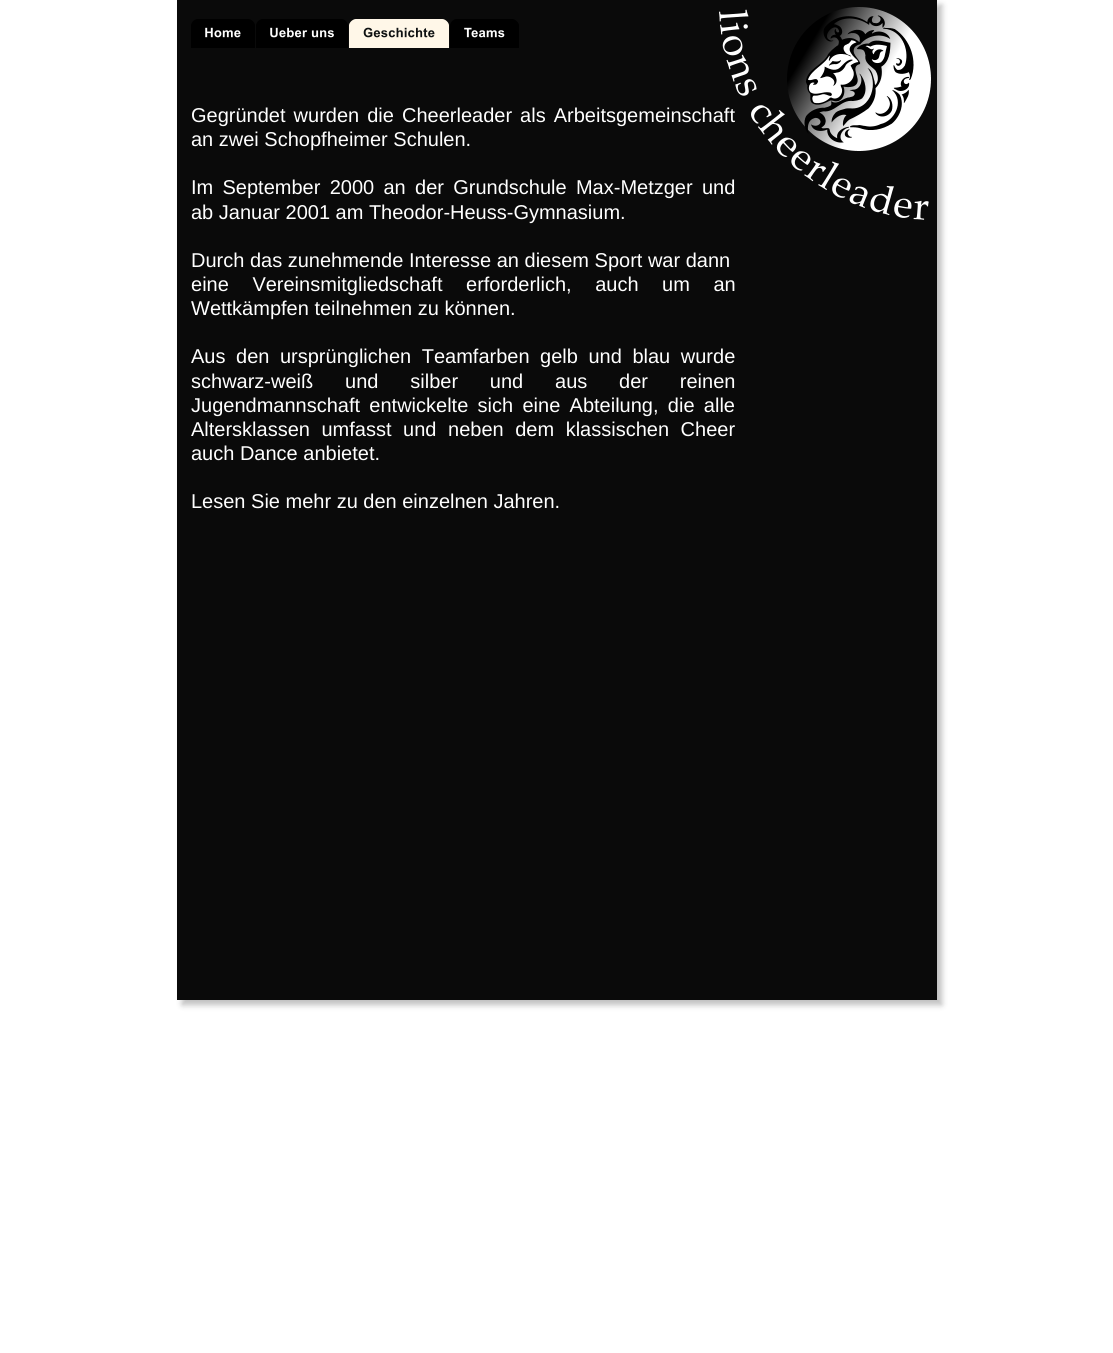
#include <cairo.h>
#include <math.h>
#include <stddef.h>

typedef struct { const char *family; double size; int italic, bold; unsigned color; } style_t;
static cairo_t *ctx;

static void ink(unsigned color) {
    cairo_set_source_rgb(ctx, (color >> 16) / 255.0, (color >> 8 & 255) / 255.0, (color & 255) / 255.0);
}

static void write(double x, double y, const char *s, const style_t *st) {
    cairo_select_font_face(ctx, st->family, st->italic ? CAIRO_FONT_SLANT_ITALIC : CAIRO_FONT_SLANT_NORMAL,
        st->bold ? CAIRO_FONT_WEIGHT_BOLD : CAIRO_FONT_WEIGHT_NORMAL);
    cairo_set_font_size(ctx, st->size);
    ink(st->color);
    cairo_move_to(ctx, x, y);
    cairo_show_text(ctx, s);
}

static void write_spaced(double x, double y, const char *s, double letter, double word) {
    cairo_move_to(ctx, x, y);
    while (*s) {
        char ch[5] = {0};
        int n = 0;
        do ch[n++] = *s++; while ((*s & 0xC0) == 0x80);
        cairo_show_text(ctx, ch);
        cairo_rel_move_to(ctx, letter + word * (*ch == ' '), 0);
    }
}

static void block(double x, double y, double w, double h, unsigned color) {
    ink(color);
    cairo_rectangle(ctx, x, y, w, h);
    cairo_fill(ctx);
}

static void round_path(double x, double y, double w, double h, double r) {
    cairo_new_sub_path(ctx);
    cairo_arc(ctx, x + w - r, y + h - r, r, 0, M_PI / 2);
    cairo_arc(ctx, x + r, y + h - r, r, M_PI / 2, M_PI);
    cairo_arc(ctx, x + r, y + r, r, M_PI, 1.5 * M_PI);
    cairo_arc(ctx, x + w - r, y + r, r, 1.5 * M_PI, 2 * M_PI);
    cairo_close_path(ctx);
}

static void blur_box(double x, double y, double w, double h, double r, double blur, double alpha) {
    cairo_push_group_with_content(ctx, CAIRO_CONTENT_ALPHA);
    cairo_set_operator(ctx, CAIRO_OPERATOR_SOURCE);
    for (int i = 15; i >= -15 && fmin(w, h) + blur * i / 3 > 0; i -= 2) {
        double e = blur * i / 6;
        cairo_set_source_rgba(ctx, 0, 0, 0, alpha * erfc((i - 1) / 8.5) / 2);
        round_path(x - e, y - e, w + 2 * e, h + 2 * e, fmax(0, fmin(r + e + blur * .6, fmin(w, h) / 2 + e)));
        cairo_fill(ctx);
    }
    cairo_pattern_t *soft = cairo_pop_group(ctx);
    cairo_mask(ctx, soft);
    cairo_pattern_destroy(soft);
}

static void paste(const char *path, double x, double y, double w, double h) {
    cairo_surface_t *image = cairo_image_surface_create_from_png(path);
    cairo_save(ctx);
    cairo_set_source_surface(ctx, image, x, y);
    cairo_rectangle(ctx, x, y, w, h);
    cairo_fill(ctx);
    cairo_restore(ctx);
    cairo_surface_destroy(image);
}

static const style_t s1 = {"Liberation Sans", 20, 0, 0, 0xffffff};

int main(void) {
    cairo_surface_t *surface = cairo_image_surface_create(CAIRO_FORMAT_RGB24, 1113, 1353);
    ctx = cairo_create(surface);
    cairo_font_options_t *options = cairo_font_options_create();
    cairo_font_options_set_hint_metrics(options, CAIRO_HINT_METRICS_OFF);
    cairo_font_options_set_hint_style(options, CAIRO_HINT_STYLE_NONE);
    cairo_set_font_options(ctx, options);
    cairo_set_miter_limit(ctx, 4);
    ink(0xffffff);
    cairo_paint(ctx);
    ink(0x000000);
    blur_box(182, 5, 760, 1000, 0, 3, 0.25);
    block(177, 0, 760, 1000, 0x0a0a0a);
    paste("pic5.png", 719, 9, 210, 211);
    paste("pic1.png", 787, 7, 144, 144);
    paste("pic2.png", 191, 19, 64, 29);
    paste("pic3.png", 256, 19, 92, 29);
    paste("pic4.png", 349, 19, 100, 7);
    paste("pic6.png", 349, 19, 100, 29);
    paste("pic7.png", 450, 19, 69, 29);
    cairo_select_font_face(ctx, "Liberation Sans", CAIRO_FONT_SLANT_NORMAL, CAIRO_FONT_WEIGHT_NORMAL);
    cairo_set_font_size(ctx, 20);
    ink(0xffffff);
    write_spaced(191, 122, "Gegründet wurden die Cheerleader als Arbeitsgemeinschaft", 0, 2.5);
    write(191, 146, "an zwei Schopfheimer Schulen.", &s1);
    write_spaced(191, 194, "Im September 2000 an der Grundschule Max-Metzger und", 0, 3.75);
    write(191, 219, "ab Januar 2001 am Theodor-Heuss-Gymnasium.", &s1);
    write(191, 267, "Durch das zunehmende Interesse an diesem Sport war dann", &s1);
    write_spaced(191, 291, "eine Vereinsmitgliedschaft erforderlich, auch um an", 0, 18);
    write(191, 315, "Wettkämpfen teilnehmen zu können.", &s1);
    write_spaced(191, 363, "Aus den ursprünglichen Teamfarben gelb und blau wurde", 0, 5);
    write_spaced(191, 388, "schwarz-weiß und silber und aus der reinen", 0, 26.25);
    write_spaced(191, 412, "Jugendmannschaft entwickelte sich eine Abteilung, die alle", 0, 3.75);
    write_spaced(191, 436, "Altersklassen umfasst und neben dem klassischen Cheer", 0, 6);
    write(191, 460, "auch Dance anbietet.", &s1);
    write(191, 508, "Lesen Sie mehr zu den einzelnen Jahren.", &s1);
    cairo_surface_write_to_png(surface, "screenshot.png");
    cairo_font_options_destroy(options);
    cairo_destroy(ctx);
    cairo_surface_destroy(surface);
    return 0;
}
